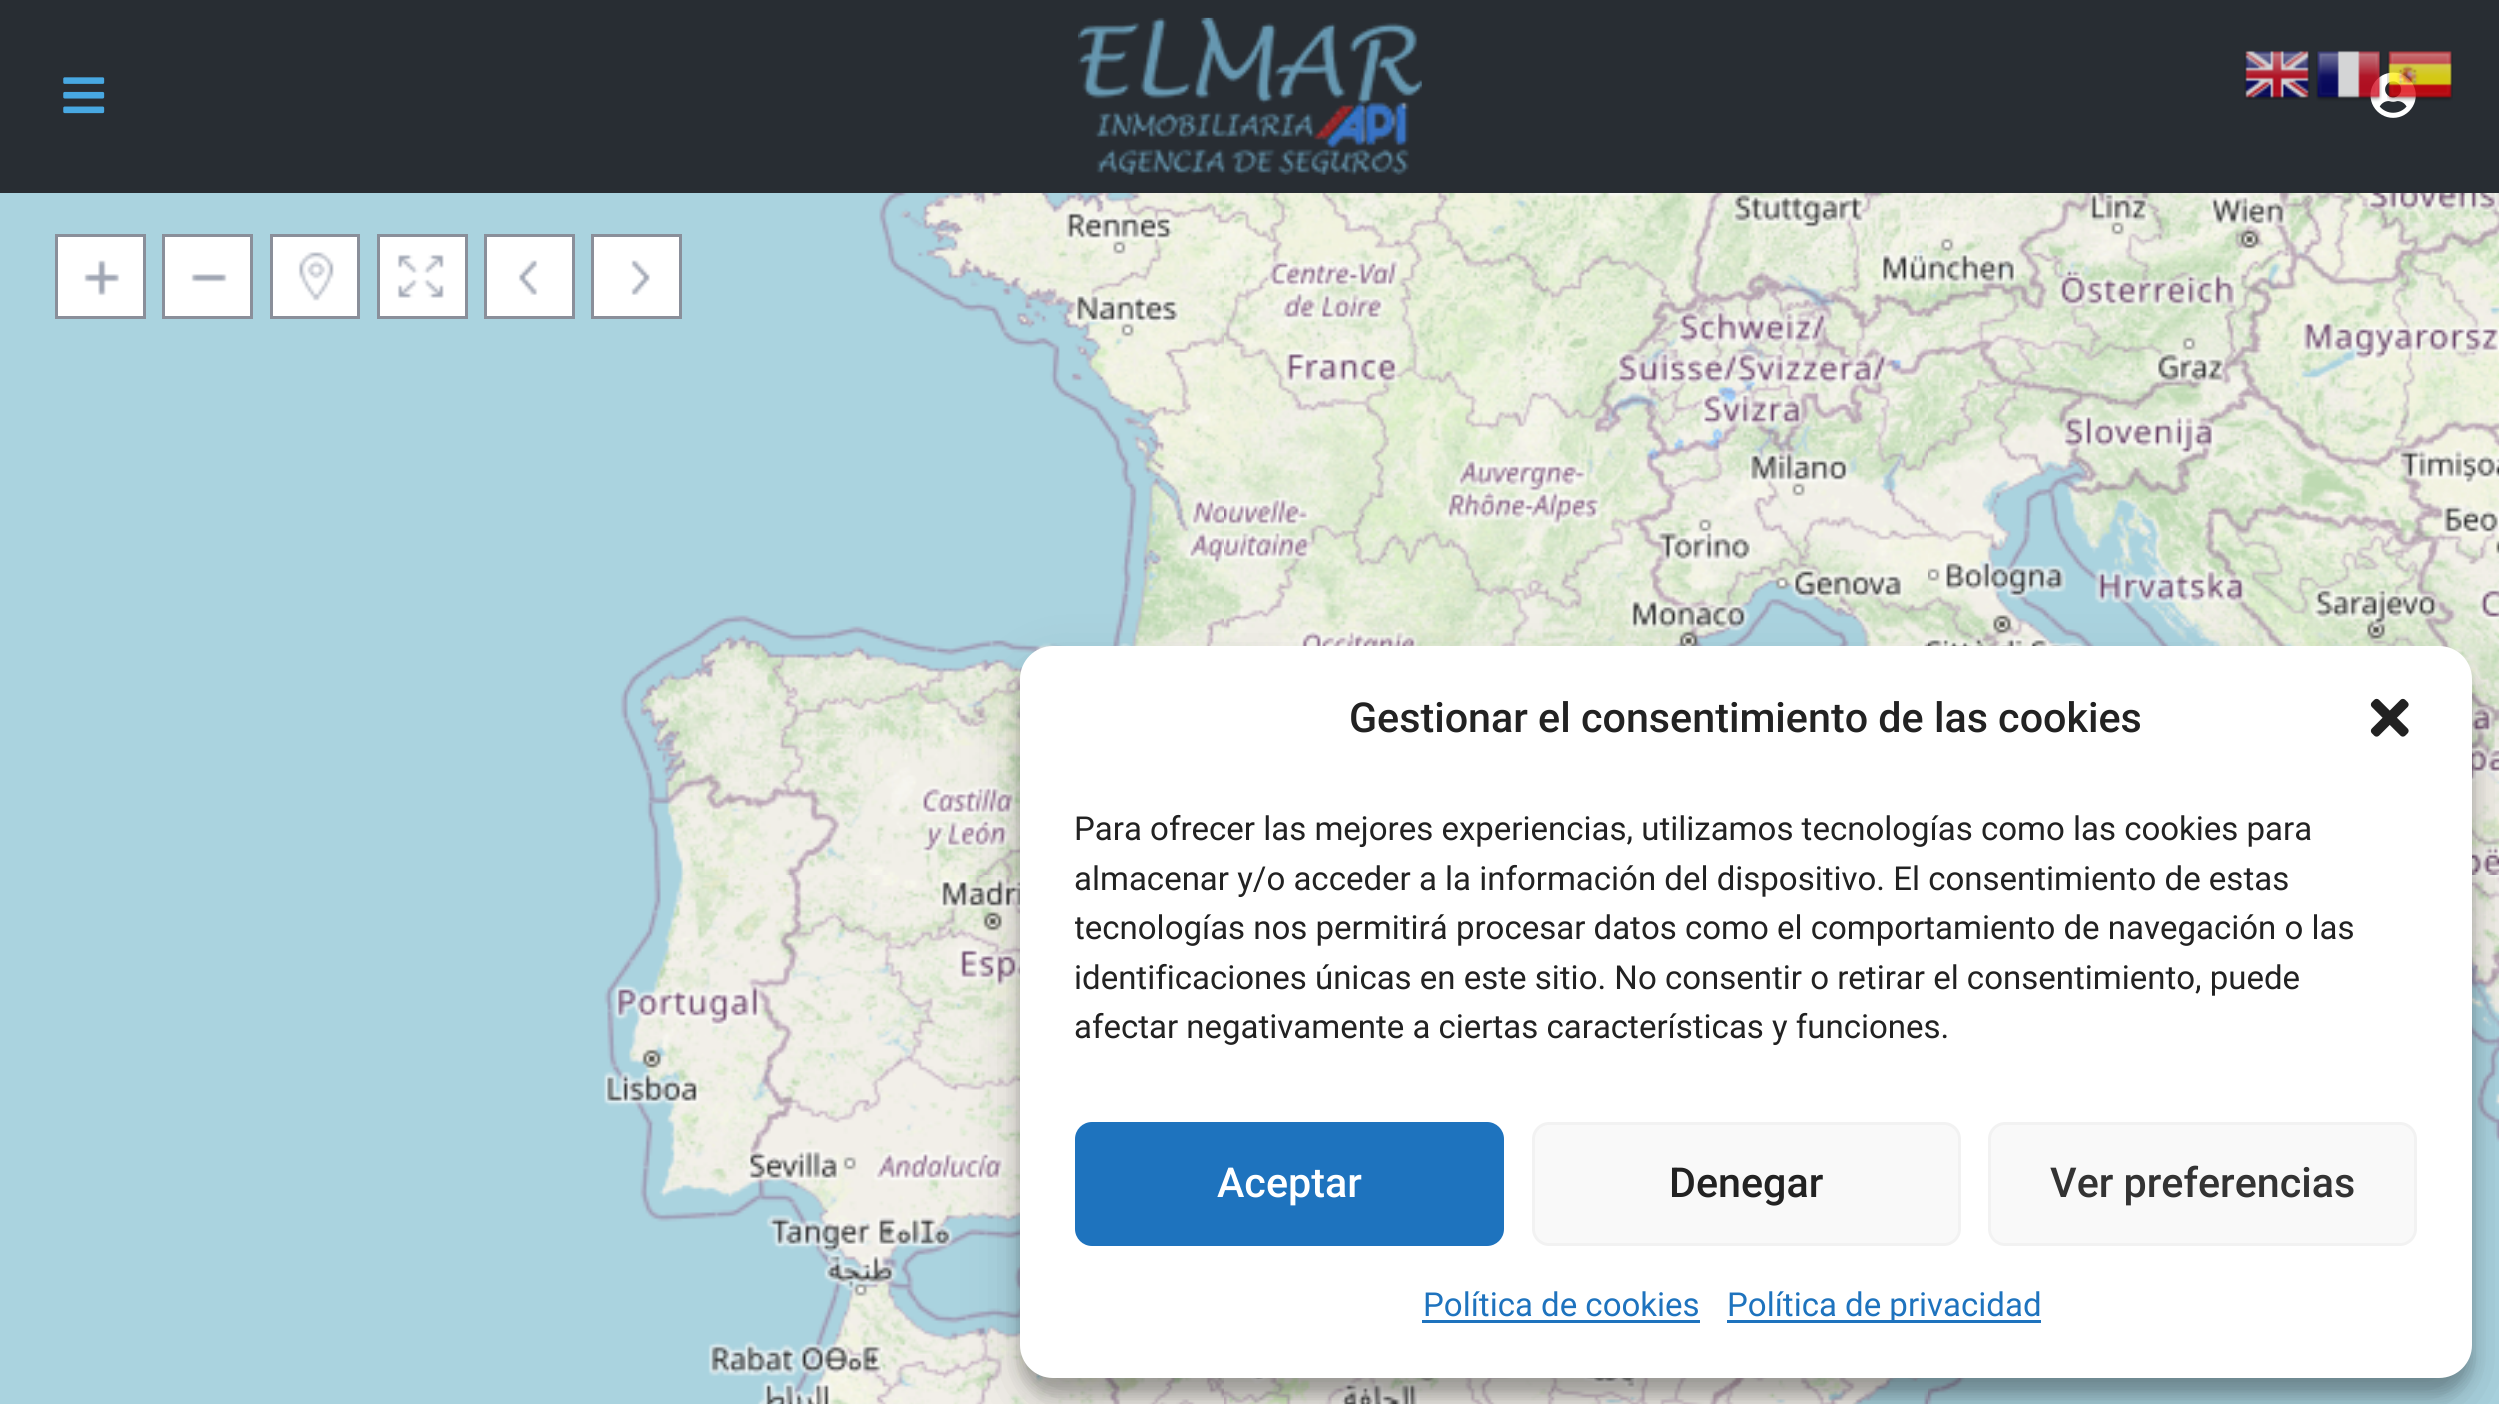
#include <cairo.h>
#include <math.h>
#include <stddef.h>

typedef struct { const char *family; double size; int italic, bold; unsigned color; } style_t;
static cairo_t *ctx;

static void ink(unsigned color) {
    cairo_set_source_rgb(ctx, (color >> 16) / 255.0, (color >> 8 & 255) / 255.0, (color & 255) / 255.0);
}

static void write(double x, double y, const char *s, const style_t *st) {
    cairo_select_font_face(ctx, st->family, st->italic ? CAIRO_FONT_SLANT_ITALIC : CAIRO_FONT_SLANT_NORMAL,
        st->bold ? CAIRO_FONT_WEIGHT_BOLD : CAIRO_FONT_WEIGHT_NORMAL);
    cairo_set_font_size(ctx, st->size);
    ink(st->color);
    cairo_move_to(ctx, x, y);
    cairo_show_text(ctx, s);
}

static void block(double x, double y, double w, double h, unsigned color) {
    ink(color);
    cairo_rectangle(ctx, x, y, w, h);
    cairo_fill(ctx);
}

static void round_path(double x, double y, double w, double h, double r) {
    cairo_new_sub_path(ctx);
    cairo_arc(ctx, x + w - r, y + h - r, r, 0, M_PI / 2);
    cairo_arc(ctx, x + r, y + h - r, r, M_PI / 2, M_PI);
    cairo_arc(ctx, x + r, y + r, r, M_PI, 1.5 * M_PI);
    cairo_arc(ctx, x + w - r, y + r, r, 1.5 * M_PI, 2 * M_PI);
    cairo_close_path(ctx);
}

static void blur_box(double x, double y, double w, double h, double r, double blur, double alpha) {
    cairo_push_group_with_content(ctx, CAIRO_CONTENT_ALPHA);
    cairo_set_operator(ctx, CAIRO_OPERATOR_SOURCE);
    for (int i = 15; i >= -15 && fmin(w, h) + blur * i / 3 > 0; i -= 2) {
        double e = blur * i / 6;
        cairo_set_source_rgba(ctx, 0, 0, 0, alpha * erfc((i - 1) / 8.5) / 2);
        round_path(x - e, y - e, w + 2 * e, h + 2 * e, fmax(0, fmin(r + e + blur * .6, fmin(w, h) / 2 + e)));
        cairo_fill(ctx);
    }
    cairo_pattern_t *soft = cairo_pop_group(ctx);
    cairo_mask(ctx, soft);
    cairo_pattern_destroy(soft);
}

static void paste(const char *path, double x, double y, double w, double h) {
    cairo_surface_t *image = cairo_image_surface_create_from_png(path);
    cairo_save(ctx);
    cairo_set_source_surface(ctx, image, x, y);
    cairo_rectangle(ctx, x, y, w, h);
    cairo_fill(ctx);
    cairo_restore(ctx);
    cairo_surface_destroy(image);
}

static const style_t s1 = {"Roboto Medium", 41.25, 0, 0, 0x222222};
static const style_t s2 = {"Roboto", 33, 0, 0, 0x222222};
static const style_t s3 = {"Roboto Medium", 41.25, 0, 0, 0xffffff};
static const style_t s4 = {"Roboto Medium", 41.25, 0, 0, 0x333333};
static const style_t s5 = {"Roboto", 33, 0, 0, 0x1e73be};

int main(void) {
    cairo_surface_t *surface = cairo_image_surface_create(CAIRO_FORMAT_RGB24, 2499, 1404);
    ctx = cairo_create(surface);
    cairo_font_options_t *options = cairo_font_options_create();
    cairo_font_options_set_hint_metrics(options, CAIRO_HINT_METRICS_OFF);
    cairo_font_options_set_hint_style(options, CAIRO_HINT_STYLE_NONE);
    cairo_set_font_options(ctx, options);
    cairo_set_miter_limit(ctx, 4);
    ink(0xffffff);
    cairo_paint(ctx);
    block(0, 0, 2499, 193, 0x282d33);
    paste("pic1.png", 63, 77, 42, 37);
    paste("pic2.png", 1078, 17, 344, 158);
    paste("pic3.png", 2370, 72, 46, 46);
    block(0, 193, 520, 1211, 0xaad3df);
    paste("pic4.png", 520, 193, 704, 682);
    paste("pic5.png", 1224, 193, 704, 453);
    paste("pic6.png", 1928, 193, 571, 682);
    paste("pic7.png", 520, 875, 704, 529);
    paste("pic8.png", 1224, 1378, 704, 26);
    paste("pic9.png", 1928, 875, 571, 529);
    block(58, 237, 85, 79, 0xffffff);
    paste("pic10.png", 84, 260, 36, 36);
    cairo_rectangle(ctx, 56.5, 235.5, 88, 82);
    ink(0x8a8f9a);
    cairo_set_line_width(ctx, 3);
    cairo_stroke(ctx);
    block(165, 237, 85, 79, 0xffffff);
    paste("pic11.png", 191, 274, 36, 8);
    cairo_rectangle(ctx, 163.5, 235.5, 88, 82);
    ink(0x8a8f9a);
    cairo_stroke(ctx);
    block(273, 237, 84, 79, 0xffffff);
    paste("pic12.png", 298, 252, 36, 49);
    cairo_rectangle(ctx, 271.5, 235.5, 87, 82);
    ink(0x8a8f9a);
    cairo_stroke(ctx);
    block(380, 237, 85, 79, 0xffffff);
    paste("pic13.png", 397, 254, 47, 44);
    cairo_rectangle(ctx, 378.5, 235.5, 88, 82);
    ink(0x8a8f9a);
    cairo_stroke(ctx);
    block(487, 237, 85, 79, 0xffffff);
    paste("pic14.png", 518, 260, 20, 35);
    cairo_rectangle(ctx, 485.5, 235.5, 88, 82);
    ink(0x8a8f9a);
    cairo_stroke(ctx);
    block(594, 237, 85, 79, 0xffffff);
    paste("pic15.png", 631, 260, 19, 35);
    cairo_rectangle(ctx, 592.5, 235.5, 88, 82);
    ink(0x8a8f9a);
    cairo_stroke(ctx);
    paste("pic16.png", 2244, 50, 66, 50);
    paste("pic17.png", 2316, 50, 66, 52);
    paste("pic18.png", 2387, 50, 66, 52);
    ink(0x000000);
    blur_box(1020, 663, 1452, 731, 33, 8, 0.23);
    blur_box(1020, 674, 1452, 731, 33, 27.5, 0.19);
    ink(0xffffff);
    round_path(1020, 646, 1452, 732, 33);
    cairo_fill(ctx);
    write(1349, 732, "Gestionar el consentimiento de las cookies", &s1);
    paste("pic19.png", 2370, 698, 39, 39);
    write(1074, 840, "Para ofrecer las mejores experiencias, utilizamos tecnologías como las cookies para", &s2);
    write(1074, 890, "almacenar y/o acceder a la información del dispositivo. El consentimiento de estas", &s2);
    cairo_save(ctx);
    cairo_rectangle(ctx, 1075, 806, 1342, 261);
    cairo_clip(ctx);
    write(1074, 939, "tecnologías nos permitirá procesar datos como el comportamiento de navegación o las", &s2);
    cairo_restore(ctx);
    write(1074, 989, "identificaciones únicas en este sitio. No consentir o retirar el consentimiento, puede", &s2);
    write(1074, 1038, "afectar negativamente a ciertas características y funciones.", &s2);
    ink(0x1e73be);
    round_path(1076.5, 1123.5, 426, 121, 15.5);
    cairo_fill_preserve(ctx);
    cairo_stroke(ctx);
    write(1217, 1197, "Aceptar", &s3);
    ink(0xf9f9f9);
    round_path(1533.5, 1123.5, 426, 121, 15.5);
    cairo_fill_preserve(ctx);
    ink(0xf2f2f2);
    cairo_stroke(ctx);
    write(1669, 1197, "Denegar", &s1);
    ink(0xf9f9f9);
    round_path(1989.5, 1123.5, 426, 121, 15.5);
    cairo_fill_preserve(ctx);
    ink(0xf2f2f2);
    cairo_stroke(ctx);
    write(2050, 1197, "Ver preferencias", &s4);
    write(1423, 1316, "Política de cookies", &s5);
    block(1422, 1320, 278, 3, 0x1e73be);
    block(1727, 1320, 314, 3, 0x1e73be);
    write(1727, 1316, "Política de privacidad", &s5);
    cairo_surface_write_to_png(surface, "screenshot.png");
    cairo_font_options_destroy(options);
    cairo_destroy(ctx);
    cairo_surface_destroy(surface);
    return 0;
}
